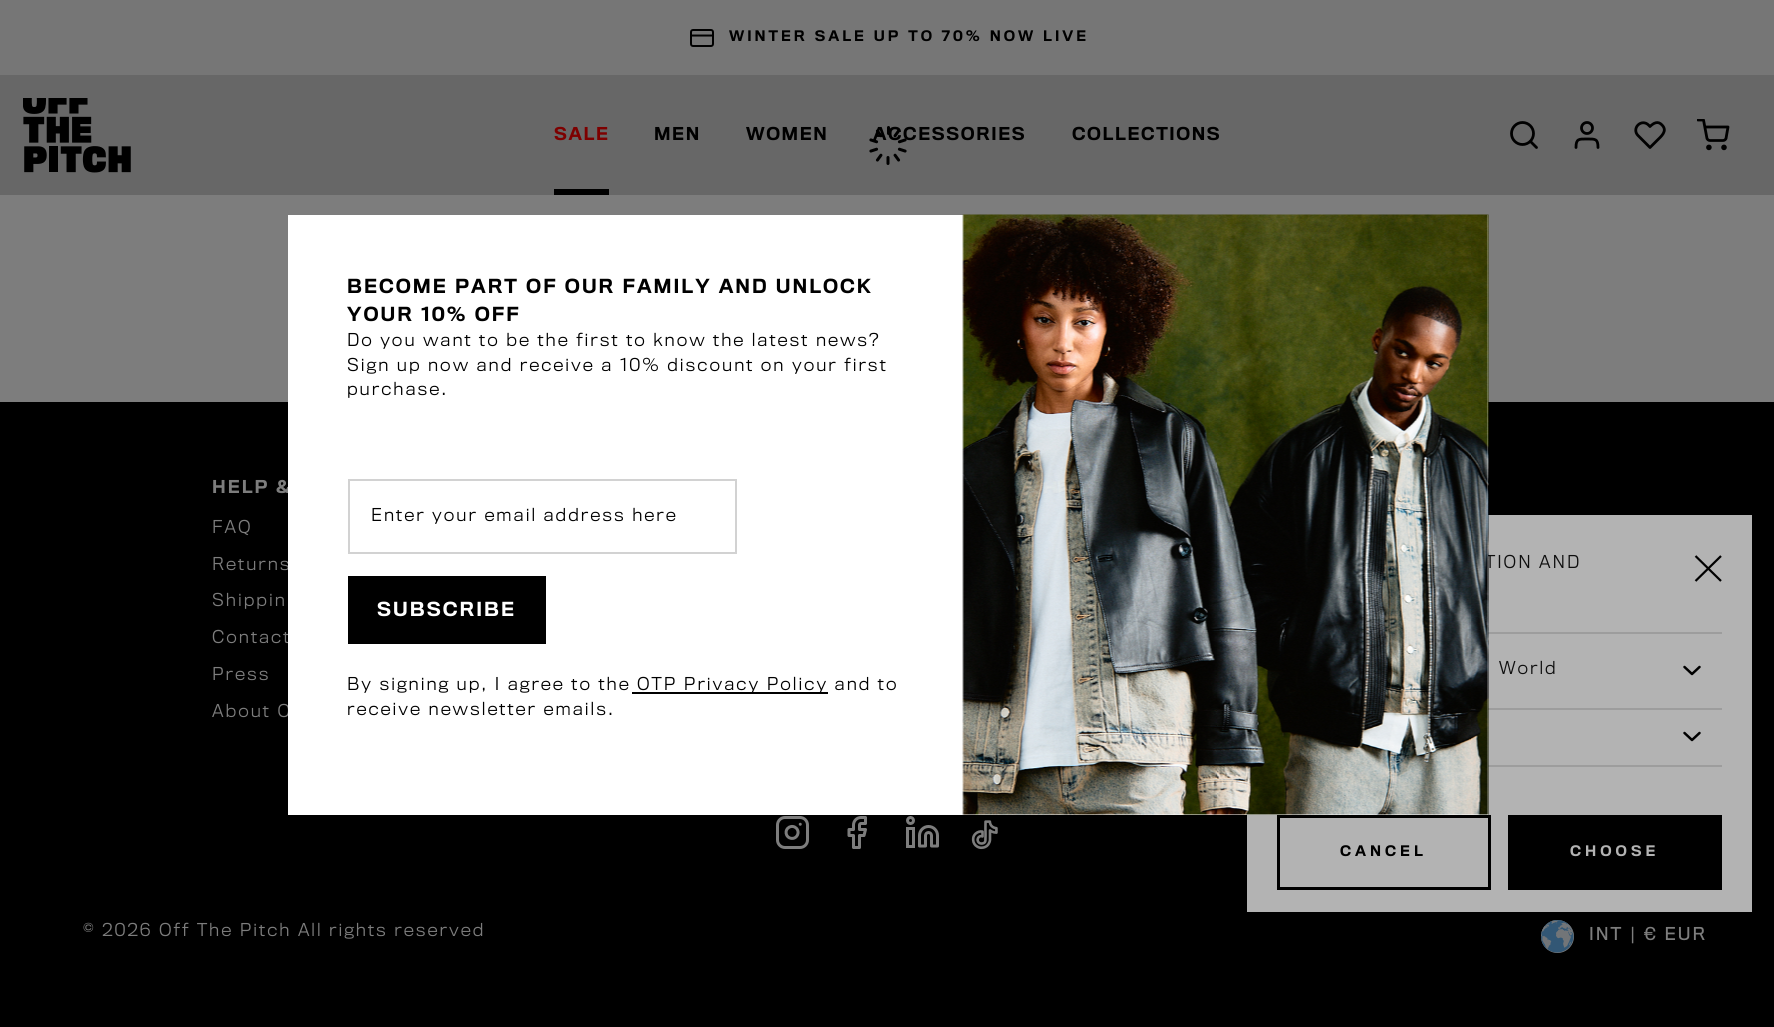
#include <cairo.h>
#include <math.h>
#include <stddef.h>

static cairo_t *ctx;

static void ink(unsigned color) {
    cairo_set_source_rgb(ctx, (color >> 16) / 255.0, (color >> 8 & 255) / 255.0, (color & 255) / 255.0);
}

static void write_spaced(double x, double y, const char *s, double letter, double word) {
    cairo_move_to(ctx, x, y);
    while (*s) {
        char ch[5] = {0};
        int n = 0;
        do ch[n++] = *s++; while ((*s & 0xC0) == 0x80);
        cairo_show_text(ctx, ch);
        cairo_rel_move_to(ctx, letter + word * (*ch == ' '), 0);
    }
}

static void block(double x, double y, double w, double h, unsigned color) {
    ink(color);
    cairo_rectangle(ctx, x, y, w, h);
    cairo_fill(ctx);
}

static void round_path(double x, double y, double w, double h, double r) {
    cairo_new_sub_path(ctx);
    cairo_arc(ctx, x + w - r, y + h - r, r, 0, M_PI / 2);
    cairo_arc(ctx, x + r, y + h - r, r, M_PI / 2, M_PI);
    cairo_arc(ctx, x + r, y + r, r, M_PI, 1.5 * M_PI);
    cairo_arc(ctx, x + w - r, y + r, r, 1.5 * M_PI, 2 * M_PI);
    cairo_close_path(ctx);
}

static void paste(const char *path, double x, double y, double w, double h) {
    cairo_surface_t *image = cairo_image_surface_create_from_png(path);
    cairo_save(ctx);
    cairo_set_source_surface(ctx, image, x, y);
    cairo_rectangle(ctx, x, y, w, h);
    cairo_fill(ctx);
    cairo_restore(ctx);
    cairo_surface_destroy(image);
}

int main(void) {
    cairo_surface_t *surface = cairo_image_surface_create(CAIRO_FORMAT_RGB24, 1774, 1027);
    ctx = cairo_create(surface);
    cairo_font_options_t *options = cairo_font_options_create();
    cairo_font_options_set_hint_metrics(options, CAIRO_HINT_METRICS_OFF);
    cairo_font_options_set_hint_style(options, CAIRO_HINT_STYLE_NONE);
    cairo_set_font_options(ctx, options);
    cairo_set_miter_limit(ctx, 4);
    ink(0x7d7d7d);
    cairo_paint(ctx);
    block(0, 0, 1774, 75, 0x767676);
    round_path(691, 30, 22, 16, 2);
    ink(0x000000);
    cairo_stroke(ctx);
    cairo_new_path(ctx);
    cairo_move_to(ctx, 691, 35.5);
    cairo_line_to(ctx, 713, 35.5);
    cairo_set_line_cap(ctx, CAIRO_LINE_CAP_ROUND);
    cairo_set_line_join(ctx, CAIRO_LINE_JOIN_ROUND);
    cairo_stroke(ctx);
    cairo_select_font_face(ctx, "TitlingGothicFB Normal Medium", CAIRO_FONT_SLANT_NORMAL, CAIRO_FONT_WEIGHT_NORMAL);
    cairo_set_font_size(ctx, 13.5);
    write_spaced(729, 41, "WINTER SALE UP TO 70% NOW LIVE", 3, 0);
    block(0, 75, 1774, 120, 0x676767);
    paste("pic1.png", 23, 98, 108, 75);
    cairo_set_font_size(ctx, 16.5);
    ink(0x7d0000);
    write_spaced(554, 140, "SALE", 1.6, 0);
    block(554, 189, 55, 6, 0x000000);
    write_spaced(654, 140, "MEN", 1.6, 0);
    write_spaced(746, 140, "WOMEN", 1.6, 0);
    write_spaced(873, 140, "ACCESSORIES", 1.6, 0);
    write_spaced(1072, 140, "COLLECTIONS", 1.6, 0);
    cairo_new_path(ctx);
    cairo_arc(ctx, 1522.5, 133.5, 11, 0, 2 * M_PI);
    cairo_set_line_width(ctx, 2.8);
    cairo_set_line_cap(ctx, CAIRO_LINE_CAP_BUTT);
    cairo_set_line_join(ctx, CAIRO_LINE_JOIN_MITER);
    cairo_stroke(ctx);
    cairo_new_path(ctx);
    cairo_move_to(ctx, 1536.5, 147.5);
    cairo_line_to(ctx, 1530.5, 141.5);
    cairo_set_line_cap(ctx, CAIRO_LINE_CAP_ROUND);
    cairo_set_line_join(ctx, CAIRO_LINE_JOIN_ROUND);
    cairo_stroke(ctx);
    cairo_new_path(ctx);
    cairo_move_to(ctx, 1598, 147.5);
    cairo_curve_to(ctx, 1598, 138.5, 1595, 139, 1587, 139);
    cairo_curve_to(ctx, 1579, 139, 1576, 138.5, 1576, 147.5);
    cairo_stroke(ctx);
    cairo_arc(ctx, 1587, 128, 5.5, 0, 2 * M_PI);
    cairo_set_line_cap(ctx, CAIRO_LINE_CAP_BUTT);
    cairo_set_line_join(ctx, CAIRO_LINE_JOIN_MITER);
    cairo_stroke(ctx);
    cairo_new_path(ctx);
    cairo_move_to(ctx, 1662, 125);
    cairo_curve_to(ctx, 1658, 120.5, 1653.5, 123, 1650, 126.5);
    cairo_line_to(ctx, 1648.5, 125);
    cairo_curve_to(ctx, 1645.5, 122, 1641, 122, 1638, 125);
    cairo_curve_to(ctx, 1635, 128, 1635, 132.5, 1638, 135.5);
    cairo_line_to(ctx, 1650, 147.5);
    cairo_line_to(ctx, 1657, 140.5);
    cairo_curve_to(ctx, 1661, 136.5, 1668, 131, 1662, 125);
    cairo_close_path(ctx);
    cairo_set_line_cap(ctx, CAIRO_LINE_CAP_ROUND);
    cairo_set_line_join(ctx, CAIRO_LINE_JOIN_ROUND);
    cairo_stroke(ctx);
    cairo_arc(ctx, 1708.9, 147.4, 1.4, 0, 2 * M_PI);
    cairo_set_line_cap(ctx, CAIRO_LINE_CAP_BUTT);
    cairo_set_line_join(ctx, CAIRO_LINE_JOIN_MITER);
    cairo_stroke(ctx);
    cairo_arc(ctx, 1724, 147.4, 1.4, 0, 2 * M_PI);
    cairo_stroke(ctx);
    cairo_save(ctx);
    cairo_rectangle(ctx, 1697, 119, 33, 33);
    cairo_clip(ctx);
    cairo_new_path(ctx);
    cairo_move_to(ctx, 1698, 120);
    cairo_line_to(ctx, 1703.5, 120);
    cairo_line_to(ctx, 1707, 138.5);
    cairo_curve_to(ctx, 1707.5, 139.5, 1708.5, 140.5, 1710, 140.5);
    cairo_line_to(ctx, 1723, 140.5);
    cairo_curve_to(ctx, 1724.5, 140.5, 1725.5, 139.5, 1726, 138.5);
    cairo_line_to(ctx, 1728, 127);
    cairo_line_to(ctx, 1705, 127);
    cairo_set_line_cap(ctx, CAIRO_LINE_CAP_ROUND);
    cairo_set_line_join(ctx, CAIRO_LINE_JOIN_ROUND);
    cairo_stroke(ctx);
    cairo_restore(ctx);
    paste("pic2.png", 869, 126, 38, 39);
    block(0, 402, 1774, 625, 0x000000);
    ink(0x7d7d7d);
    write_spaced(212, 493, "HELP &", 2, 0);
    cairo_select_font_face(ctx, "TitlingGothicFB Normal Light", CAIRO_FONT_SLANT_NORMAL, CAIRO_FONT_WEIGHT_NORMAL);
    write_spaced(212, 533, "FAQ", 2, 0);
    write_spaced(212, 570, "Returns", 2, 0);
    write_spaced(212, 606, "Shippin", 2, 0);
    write_spaced(212, 643, "Contact", 2, 0);
    write_spaced(212, 680, "Press", 2, 0);
    write_spaced(212, 717, "About O", 2, 0);
    paste("pic3.png", 776, 816, 33, 33);
    paste("pic4.png", 847, 816, 20, 33);
    paste("pic5.png", 906, 816, 33, 32);
    paste("pic6.png", 971, 820, 27, 30);
    write_spaced(83, 936, "© 2026 Off The Pitch All rights reserved", 2, 0);
    block(1247, 515, 505, 397, 0xb3b3b3);
    ink(0x0e0e0e);
    write_spaced(1485, 568, "TION AND", 2, 0);
    cairo_new_path(ctx);
    cairo_move_to(ctx, 1695.5, 581);
    cairo_line_to(ctx, 1721, 556);
    cairo_move_to(ctx, 1721, 581);
    cairo_line_to(ctx, 1695.5, 556);
    ink(0x000000);
    cairo_set_line_width(ctx, 2.2);
    cairo_stroke(ctx);
    block(1488, 632, 234, 2, 0x9d9d9d);
    block(1488, 708, 234, 2, 0x9d9d9d);
    ink(0x0e0e0e);
    write_spaced(1499, 674, "World", 2, 0);
    cairo_new_path(ctx);
    cairo_move_to(ctx, 1684.5, 667);
    cairo_line_to(ctx, 1692, 674);
    cairo_line_to(ctx, 1699.5, 667);
    ink(0x000000);
    cairo_set_line_width(ctx, 2.5);
    cairo_set_line_cap(ctx, CAIRO_LINE_CAP_ROUND);
    cairo_set_line_join(ctx, CAIRO_LINE_JOIN_ROUND);
    cairo_stroke(ctx);
    block(1488, 765, 234, 2, 0x9d9d9d);
    cairo_new_path(ctx);
    cairo_move_to(ctx, 1684.5, 733);
    cairo_line_to(ctx, 1692, 740);
    cairo_line_to(ctx, 1699.5, 733);
    ink(0x000000);
    cairo_stroke(ctx);
    cairo_rectangle(ctx, 1278.5, 816.5, 211, 72);
    cairo_set_line_width(ctx, 3);
    cairo_set_line_cap(ctx, CAIRO_LINE_CAP_BUTT);
    cairo_set_line_join(ctx, CAIRO_LINE_JOIN_MITER);
    cairo_stroke(ctx);
    cairo_select_font_face(ctx, "TitlingGothicFB Normal Medium", CAIRO_FONT_SLANT_NORMAL, CAIRO_FONT_WEIGHT_NORMAL);
    cairo_set_font_size(ctx, 13.5);
    write_spaced(1340, 856, "CANCEL", 4, 0);
    block(1508, 815, 214, 75, 0x000000);
    ink(0xb3b3b3);
    write_spaced(1570, 856, "CHOOSE", 4, 0);
    ink(0x7d7d7d);
    cairo_new_path(ctx);
    cairo_arc(ctx, 1557.5, 936.5, 16.5, 0, 2 * M_PI);
    cairo_fill(ctx);
    paste("pic7.png", 1541, 920, 33, 33);
    cairo_select_font_face(ctx, "TitlingGothicFB Normal", CAIRO_FONT_SLANT_NORMAL, CAIRO_FONT_WEIGHT_NORMAL);
    cairo_set_font_size(ctx, 16.5);
    write_spaced(1589, 940, "INT | € EUR", 2, 0);
    block(288, 215, 1200, 600, 0xffffff);
    cairo_select_font_face(ctx, "TitlingGothicFB Normal Medium", CAIRO_FONT_SLANT_NORMAL, CAIRO_FONT_WEIGHT_NORMAL);
    cairo_set_font_size(ctx, 18);
    ink(0x000000);
    write_spaced(347, 293, "BECOME PART OF OUR FAMILY AND UNLOCK", 2, 0);
    write_spaced(347, 321, "YOUR 10% OFF", 2, 0);
    cairo_select_font_face(ctx, "TitlingGothicFB Normal Light", CAIRO_FONT_SLANT_NORMAL, CAIRO_FONT_WEIGHT_NORMAL);
    cairo_set_font_size(ctx, 16.5);
    write_spaced(347, 346, "Do you want to be the first to know the latest news?", 2, 0);
    write_spaced(347, 371, "Sign up now and receive a 10% discount on your first", 2, 0);
    write_spaced(347, 395, "purchase.", 2, 0);
    cairo_rectangle(ctx, 349, 480, 387, 73);
    ink(0xd2d2d2);
    cairo_set_line_width(ctx, 2);
    cairo_stroke(ctx);
    ink(0x000000);
    write_spaced(371, 521, "Enter your email address here", 2, 0);
    block(348, 576, 198, 68, 0x000000);
    cairo_select_font_face(ctx, "TitlingGothicFB Normal Medium", CAIRO_FONT_SLANT_NORMAL, CAIRO_FONT_WEIGHT_NORMAL);
    cairo_set_font_size(ctx, 18);
    ink(0xffffff);
    write_spaced(377, 616, "SUBSCRIBE", 2, 0);
    cairo_select_font_face(ctx, "TitlingGothicFB Normal Light", CAIRO_FONT_SLANT_NORMAL, CAIRO_FONT_WEIGHT_NORMAL);
    cairo_set_font_size(ctx, 16.5);
    ink(0x000000);
    write_spaced(347, 690, "By signing up, I agree to the", 2, 0);
    block(632, 692, 196, 2, 0x000000);
    write_spaced(637, 690, "OTP Privacy Policy and to", 2, 0);
    write_spaced(347, 715, "receive newsletter emails.", 2, 0);
    paste("pic8.png", 962, 214, 527, 601);
    cairo_surface_write_to_png(surface, "screenshot.png");
    cairo_font_options_destroy(options);
    cairo_destroy(ctx);
    cairo_surface_destroy(surface);
    return 0;
}
